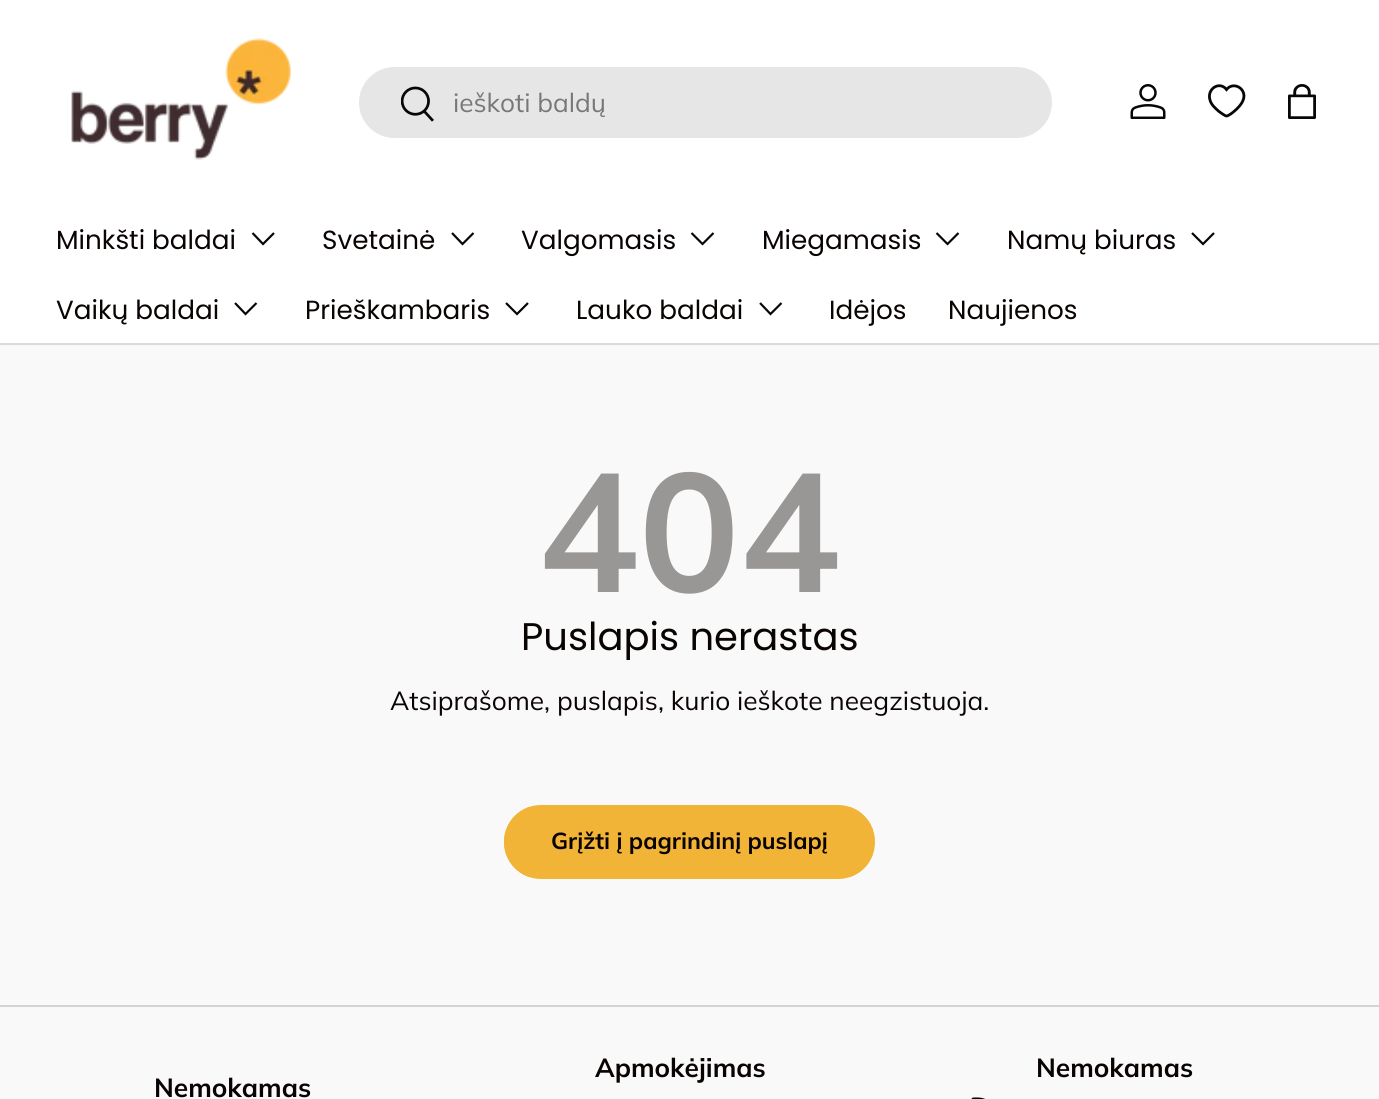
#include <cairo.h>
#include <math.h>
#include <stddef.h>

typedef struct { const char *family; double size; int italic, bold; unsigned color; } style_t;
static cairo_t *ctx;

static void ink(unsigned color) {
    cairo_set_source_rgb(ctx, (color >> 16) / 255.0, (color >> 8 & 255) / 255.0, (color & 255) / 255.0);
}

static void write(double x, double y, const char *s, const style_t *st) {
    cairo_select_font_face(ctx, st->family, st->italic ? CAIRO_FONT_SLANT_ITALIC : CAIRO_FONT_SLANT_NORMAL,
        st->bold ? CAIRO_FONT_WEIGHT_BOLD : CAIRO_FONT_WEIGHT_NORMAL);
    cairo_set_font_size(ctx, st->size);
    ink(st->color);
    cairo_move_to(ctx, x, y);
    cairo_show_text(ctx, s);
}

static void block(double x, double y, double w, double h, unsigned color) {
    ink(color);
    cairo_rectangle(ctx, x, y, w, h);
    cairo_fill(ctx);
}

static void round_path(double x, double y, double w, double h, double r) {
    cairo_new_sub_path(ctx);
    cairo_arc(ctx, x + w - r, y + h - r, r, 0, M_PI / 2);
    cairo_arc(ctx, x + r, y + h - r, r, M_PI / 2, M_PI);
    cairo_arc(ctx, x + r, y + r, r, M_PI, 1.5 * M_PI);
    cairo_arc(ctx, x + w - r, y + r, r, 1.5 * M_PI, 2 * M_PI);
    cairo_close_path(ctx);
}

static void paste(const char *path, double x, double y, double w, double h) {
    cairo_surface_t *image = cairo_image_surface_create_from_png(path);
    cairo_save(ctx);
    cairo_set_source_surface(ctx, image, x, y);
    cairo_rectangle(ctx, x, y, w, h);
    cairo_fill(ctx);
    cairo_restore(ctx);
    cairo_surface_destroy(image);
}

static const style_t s1 = {"Muli", 26.25, 0, 0, 0x777777};
static const style_t s2 = {"Poppins", 26.25, 0, 0, 0x090302};
static const style_t s3 = {"Muli", 168, 0, 1, 0x999796};
static const style_t s4 = {"Poppins", 38.5, 0, 0, 0x090302};
static const style_t s5 = {"Muli", 26.25, 0, 0, 0x090302};
static const style_t s6 = {"Muli", 23.1, 0, 1, 0x090302};
static const style_t s7 = {"Muli", 26.25, 0, 1, 0x090302};

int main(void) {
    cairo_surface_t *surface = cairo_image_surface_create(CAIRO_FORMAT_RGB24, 1379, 1099);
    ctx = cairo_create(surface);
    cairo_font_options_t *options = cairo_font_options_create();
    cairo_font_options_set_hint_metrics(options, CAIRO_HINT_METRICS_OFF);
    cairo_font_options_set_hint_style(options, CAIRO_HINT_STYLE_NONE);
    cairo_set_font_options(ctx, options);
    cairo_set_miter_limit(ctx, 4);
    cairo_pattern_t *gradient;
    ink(0xf9f9f9);
    cairo_paint(ctx);
    block(0, 0, 1379, 343, 0xffffff);
    block(0, 343, 1379, 2, 0xdadada);
    paste("pic1.png", 71, 38, 220, 122);
    ink(0xe6e6e6);
    round_path(359, 67, 693, 71, 35.5);
    cairo_fill(ctx);
    paste("pic2.png", 401, 86, 33, 36);
    write(453, 112, "ieškoti baldų", &s1);
    paste("pic3.png", 1130, 84, 36, 35);
    cairo_new_path(ctx);
    cairo_move_to(ctx, 1226.5, 116);
    cairo_curve_to(ctx, 1225, 116, 1220.5, 112.5, 1219, 111.5);
    cairo_curve_to(ctx, 1215.5, 108.5, 1211, 104.5, 1210, 100);
    cairo_curve_to(ctx, 1206.5, 89, 1219.5, 80.5, 1226.5, 89.5);
    cairo_curve_to(ctx, 1233.5, 81, 1246.5, 88.5, 1243.5, 99);
    cairo_curve_to(ctx, 1242, 104, 1238, 108, 1234.5, 111);
    cairo_curve_to(ctx, 1233.5, 112, 1228.5, 116, 1226.5, 116);
    cairo_close_path(ctx);
    ink(0x070707);
    cairo_set_line_width(ctx, 2.8);
    cairo_stroke(ctx);
    paste("pic4.png", 1288, 84, 28, 35);
    write(56, 249, "Minkšti baldai", &s2);
    cairo_new_path(ctx);
    cairo_move_to(ctx, 274, 233);
    cairo_line_to(ctx, 263, 244);
    cairo_line_to(ctx, 252.5, 233);
    ink(0x070707);
    cairo_set_line_width(ctx, 2.2);
    cairo_stroke(ctx);
    write(322, 249, "Svetainė", &s2);
    cairo_new_path(ctx);
    cairo_move_to(ctx, 473.5, 233);
    cairo_line_to(ctx, 462.5, 244);
    cairo_line_to(ctx, 452, 233);
    ink(0x070707);
    cairo_stroke(ctx);
    write(521, 249, "Valgomasis", &s2);
    cairo_new_path(ctx);
    cairo_move_to(ctx, 713.5, 233);
    cairo_line_to(ctx, 702.5, 244);
    cairo_line_to(ctx, 691.5, 233);
    ink(0x070707);
    cairo_stroke(ctx);
    write(762, 249, "Miegamasis", &s2);
    cairo_new_path(ctx);
    cairo_move_to(ctx, 958.5, 233);
    cairo_line_to(ctx, 947.5, 244);
    cairo_line_to(ctx, 936.5, 233);
    ink(0x070707);
    cairo_stroke(ctx);
    write(1007, 249, "Namų biuras", &s2);
    cairo_new_path(ctx);
    cairo_move_to(ctx, 1214, 233);
    cairo_line_to(ctx, 1203, 244);
    cairo_line_to(ctx, 1192, 233);
    ink(0x070707);
    cairo_stroke(ctx);
    write(56, 319, "Vaikų baldai", &s2);
    cairo_new_path(ctx);
    cairo_move_to(ctx, 256.5, 303);
    cairo_line_to(ctx, 245.5, 314);
    cairo_line_to(ctx, 235, 303);
    ink(0x070707);
    cairo_stroke(ctx);
    write(305, 319, "Prieškambaris", &s2);
    cairo_new_path(ctx);
    cairo_move_to(ctx, 528, 303);
    cairo_line_to(ctx, 517, 314);
    cairo_line_to(ctx, 506, 303);
    ink(0x070707);
    cairo_stroke(ctx);
    write(576, 319, "Lauko baldai", &s2);
    cairo_new_path(ctx);
    cairo_move_to(ctx, 781.5, 303);
    cairo_line_to(ctx, 770.5, 314);
    cairo_line_to(ctx, 760, 303);
    ink(0x070707);
    cairo_stroke(ctx);
    write(829, 319, "Idėjos", &s2);
    write(948, 319, "Naujienos", &s2);
    write(538, 592, "404", &s3);
    write(521, 650, "Puslapis nerastas", &s4);
    write(390, 710, "Atsiprašome, puslapis, kurio ieškote neegzistuoja.", &s5);
    cairo_save(ctx);
    round_path(504, 805, 371, 74, 37);
    cairo_clip(ctx);
    gradient = cairo_pattern_create_linear(-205, 710, 849, 973);
    cairo_pattern_add_color_stop_rgba(gradient, 0.6, 0.824, 0.624, 0.231, 1);
    cairo_pattern_add_color_stop_rgba(gradient, 0.6, 0.949, 0.706, 0.216, 1);
    cairo_pattern_add_color_stop_rgba(gradient, 1, 0.949, 0.706, 0.216, 1);
    cairo_set_source(ctx, gradient);
    cairo_pattern_destroy(gradient);
    cairo_rectangle(ctx, 504, 807, 369, 70);
    cairo_fill(ctx);
    cairo_restore(ctx);
    round_path(505, 806, 369, 72, 36);
    ink(0xf2b437);
    cairo_set_line_width(ctx, 2);
    cairo_stroke(ctx);
    write(551, 849, "Grįžti į pagrindinį puslapį", &s6);
    block(0, 1005, 1379, 2, 0xd5d4d4);
    write(595, 1077, "Apmokėjimas", &s7);
    write(1036, 1077, "Nemokamas", &s7);
    paste("pic5.png", 971, 1097, 14, 2);
    write(154, 1097, "Nemokamas", &s7);
    cairo_surface_write_to_png(surface, "screenshot.png");
    cairo_font_options_destroy(options);
    cairo_destroy(ctx);
    cairo_surface_destroy(surface);
    return 0;
}
